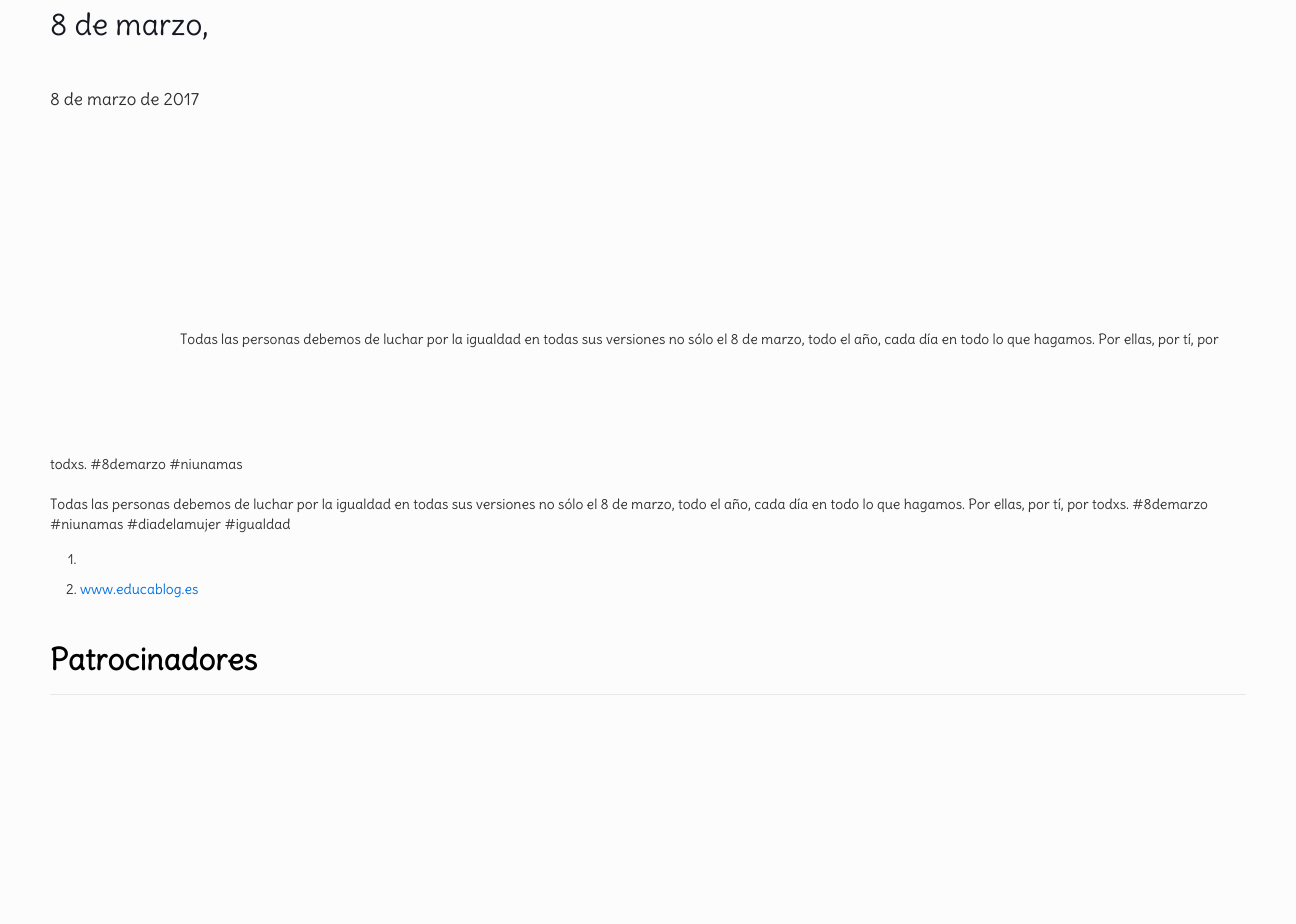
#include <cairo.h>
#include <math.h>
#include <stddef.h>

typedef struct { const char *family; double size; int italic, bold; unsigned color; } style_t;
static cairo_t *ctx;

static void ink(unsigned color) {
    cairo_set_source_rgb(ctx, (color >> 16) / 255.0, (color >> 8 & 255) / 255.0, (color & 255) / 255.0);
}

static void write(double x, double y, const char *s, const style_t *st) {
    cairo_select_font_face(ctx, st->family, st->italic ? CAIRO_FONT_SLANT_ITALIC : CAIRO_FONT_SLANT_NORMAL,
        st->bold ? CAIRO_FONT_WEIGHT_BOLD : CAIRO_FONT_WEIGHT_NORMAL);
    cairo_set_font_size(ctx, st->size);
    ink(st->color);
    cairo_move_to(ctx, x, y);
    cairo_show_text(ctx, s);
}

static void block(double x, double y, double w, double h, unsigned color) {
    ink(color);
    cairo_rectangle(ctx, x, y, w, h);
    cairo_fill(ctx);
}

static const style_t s1 = {"Delius", 30, 0, 0, 0x161922};
static const style_t s2 = {"Delius", 17, 0, 0, 0x2e2e2e};
static const style_t s3 = {"Delius", 14, 0, 0, 0x2e2e2e};
static const style_t s4 = {"Delius", 14, 0, 0, 0x006edf};
static const style_t s5 = {"Delius", 30, 0, 1, 0x000000};

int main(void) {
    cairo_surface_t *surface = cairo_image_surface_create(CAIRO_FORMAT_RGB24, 1296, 924);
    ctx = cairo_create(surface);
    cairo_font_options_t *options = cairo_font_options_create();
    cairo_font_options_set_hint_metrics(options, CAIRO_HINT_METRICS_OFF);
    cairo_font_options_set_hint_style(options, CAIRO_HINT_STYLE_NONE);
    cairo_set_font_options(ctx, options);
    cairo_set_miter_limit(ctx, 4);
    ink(0xfcfcfc);
    cairo_paint(ctx);
    write(50, 35, "8 de marzo,", &s1);
    write(50, 105, "8 de marzo de 2017", &s2);
    write(180, 344, "Todas las personas debemos de luchar por la igualdad en todas sus versiones no sólo el 8 de marzo, todo el año, cada día en todo lo que hagamos. Por ellas, por tí, por", &s3);
    write(50, 469, "todxs. #8demarzo #niunamas", &s3);
    write(50, 509, "Todas las personas debemos de luchar por la igualdad en todas sus versiones no sólo el 8 de marzo, todo el año, cada día en todo lo que hagamos. Por ellas, por tí, por todxs. #8demarzo", &s3);
    write(50, 529, "#niunamas #diadelamujer #igualdad", &s3);
    write(68, 564, "1.", &s3);
    write(66, 594, "2.", &s3);
    write(80, 594, "www.educablog.es", &s4);
    write(50, 670, "Patrocinadores", &s5);
    block(50, 694, 1196, 1, 0xe8e8e8);
    cairo_surface_write_to_png(surface, "screenshot.png");
    cairo_font_options_destroy(options);
    cairo_destroy(ctx);
    cairo_surface_destroy(surface);
    return 0;
}
